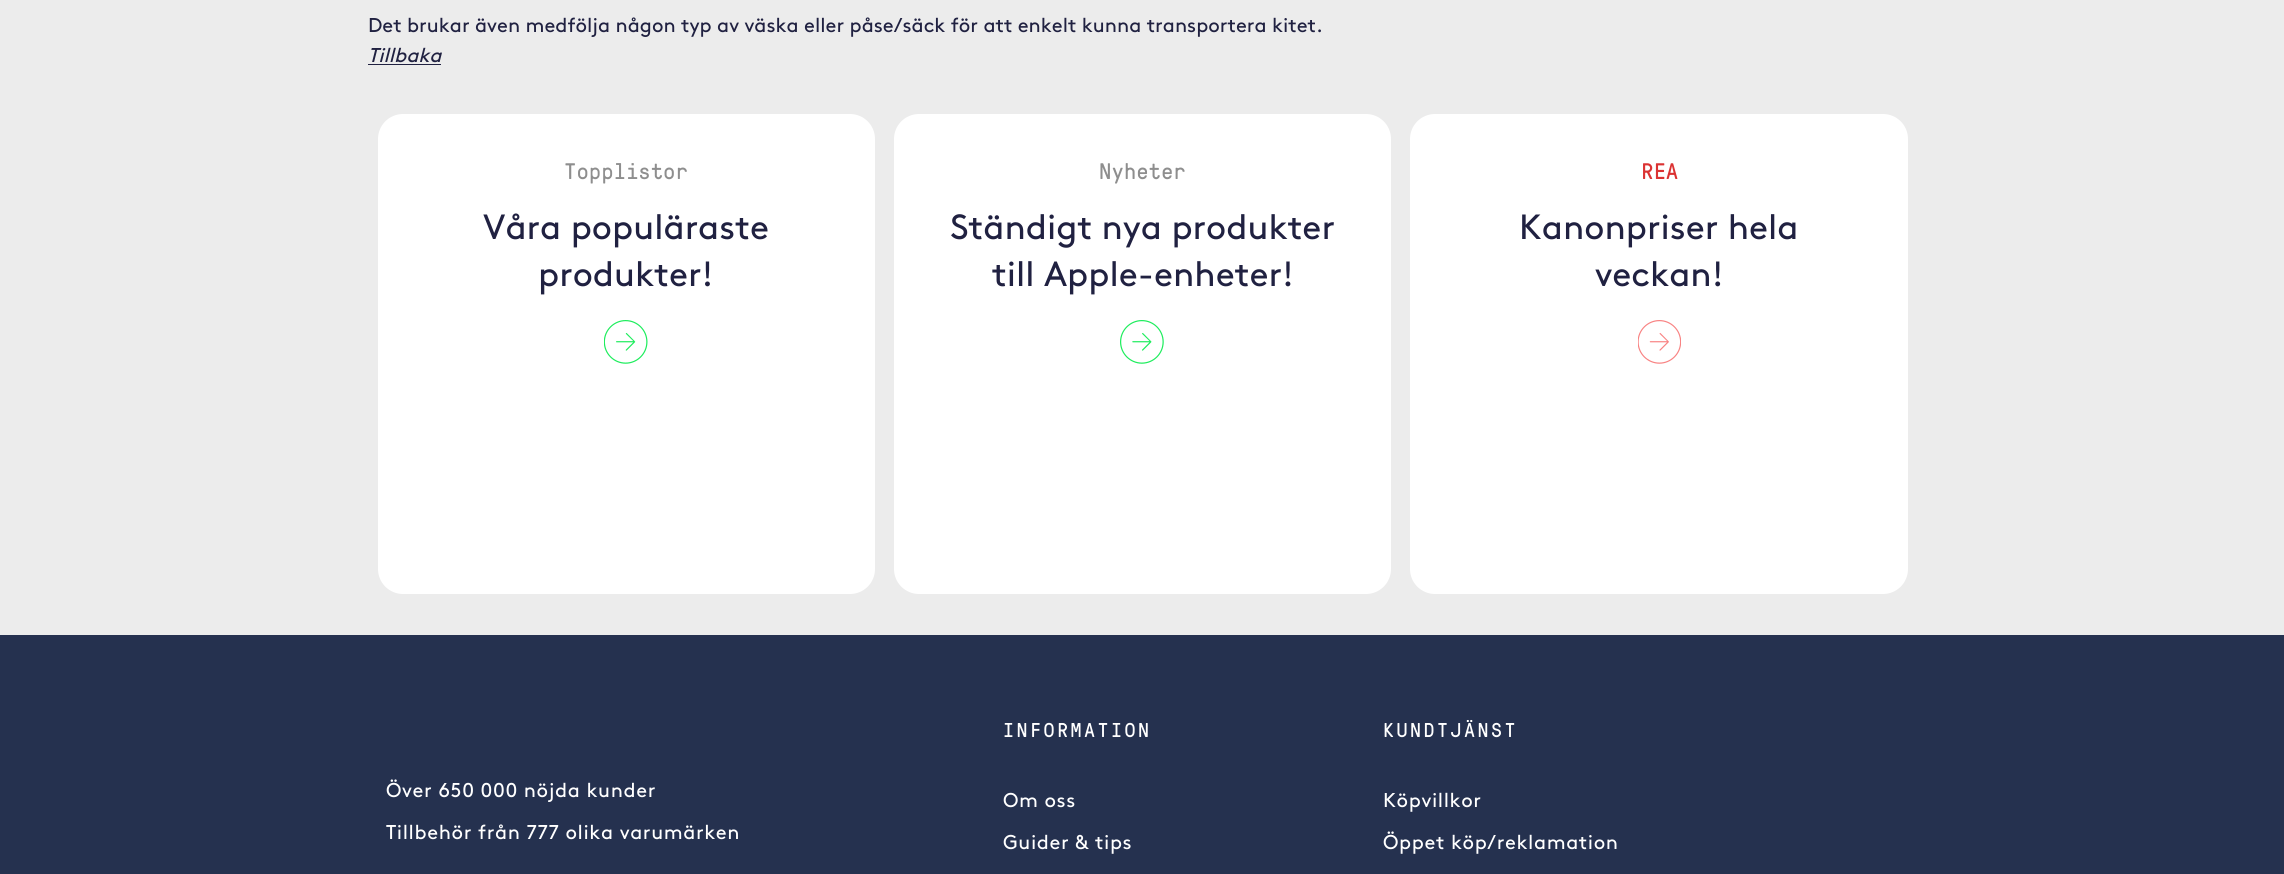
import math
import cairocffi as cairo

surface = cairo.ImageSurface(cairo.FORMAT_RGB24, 2284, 874)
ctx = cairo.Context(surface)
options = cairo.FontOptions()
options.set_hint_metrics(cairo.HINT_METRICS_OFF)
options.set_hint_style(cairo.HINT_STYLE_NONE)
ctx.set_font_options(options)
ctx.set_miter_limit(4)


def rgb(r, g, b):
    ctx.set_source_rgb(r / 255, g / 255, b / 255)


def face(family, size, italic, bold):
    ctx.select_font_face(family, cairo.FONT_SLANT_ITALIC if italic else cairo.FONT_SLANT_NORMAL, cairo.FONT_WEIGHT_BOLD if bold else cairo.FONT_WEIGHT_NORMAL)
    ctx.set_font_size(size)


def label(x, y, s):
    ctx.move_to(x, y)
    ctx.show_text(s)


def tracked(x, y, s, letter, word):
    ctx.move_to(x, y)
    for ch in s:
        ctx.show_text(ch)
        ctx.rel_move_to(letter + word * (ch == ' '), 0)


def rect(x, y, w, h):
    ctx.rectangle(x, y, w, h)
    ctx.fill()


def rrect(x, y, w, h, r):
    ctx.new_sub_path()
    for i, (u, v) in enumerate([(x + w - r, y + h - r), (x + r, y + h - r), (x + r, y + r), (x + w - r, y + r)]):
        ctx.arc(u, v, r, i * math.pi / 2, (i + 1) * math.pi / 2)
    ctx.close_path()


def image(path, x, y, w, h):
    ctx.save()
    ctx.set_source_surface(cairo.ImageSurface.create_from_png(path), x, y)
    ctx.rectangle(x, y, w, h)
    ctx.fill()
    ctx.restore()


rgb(236, 236, 236)
ctx.paint()
face('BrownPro', 20, 0, 0)
rgb(32, 33, 65)
label(368, 32, 'Det brukar även medfölja någon typ av väska eller påse/säck för att enkelt kunna transportera kitet.')
face('BrownPro', 20, 1, 0)
label(368, 62, 'Tillbaka')
rect(368, 64, 73, 1)
rgb(255, 255, 255)
rrect(378, 114, 497, 480, 25)
ctx.fill()
face('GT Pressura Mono', 22.5, 0, 0)
rgb(142, 142, 142)
label(564, 179, 'Topplistor')
face('BrownPro', 35, 0, 0)
rgb(32, 33, 65)
label(483, 239, 'Våra populäraste')
label(538, 286, 'produkter!')
image('image0.png', 604, 320, 44, 44)
rgb(255, 255, 255)
rrect(894, 114, 497, 480, 25)
ctx.fill()
face('GT Pressura Mono', 22.5, 0, 0)
rgb(142, 142, 142)
label(1099, 179, 'Nyheter')
face('BrownPro', 35, 0, 0)
rgb(32, 33, 65)
label(950, 239, 'Ständigt nya produkter')
label(992, 286, 'till Apple-enheter!')
image('image1.png', 1120, 320, 44, 44)
rgb(255, 255, 255)
rrect(1410, 114, 498, 480, 25)
ctx.fill()
face('GT Pressura Mono', 22.5, 0, 0)
rgb(219, 50, 50)
label(1641, 179, 'REA')
face('BrownPro', 35, 0, 0)
rgb(32, 33, 65)
label(1519, 239, 'Kanonpriser hela')
label(1595, 286, 'veckan!')
image('image2.png', 1638, 320, 43, 44)
rgb(37, 49, 79)
rect(0, 635, 2284, 239)
face('BrownPro', 20, 0, 0)
rgb(255, 255, 255)
tracked(386, 797, 'Över 650 000 nöjda kunder', 0.6, 0)
tracked(386, 839, 'Tillbehör från 777 olika varumärken', 0.6, 0)
face('GT Pressura Mono', 20, 0, 0)
tracked(1003, 737, 'INFORMATION', 2.5, 0)
face('BrownPro', 20, 0, 0)
tracked(1003, 807, 'Om oss', 0.6, 0)
tracked(1003, 849, 'Guider & tips', 0.6, 0)
face('GT Pressura Mono', 20, 0, 0)
tracked(1383, 737, 'KUNDTJÄNST', 2.5, 0)
face('BrownPro', 20, 0, 0)
tracked(1383, 807, 'Köpvillkor', 0.6, 0)
tracked(1383, 849, 'Öppet köp/reklamation', 0.6, 0)
surface.write_to_png('render.png')
